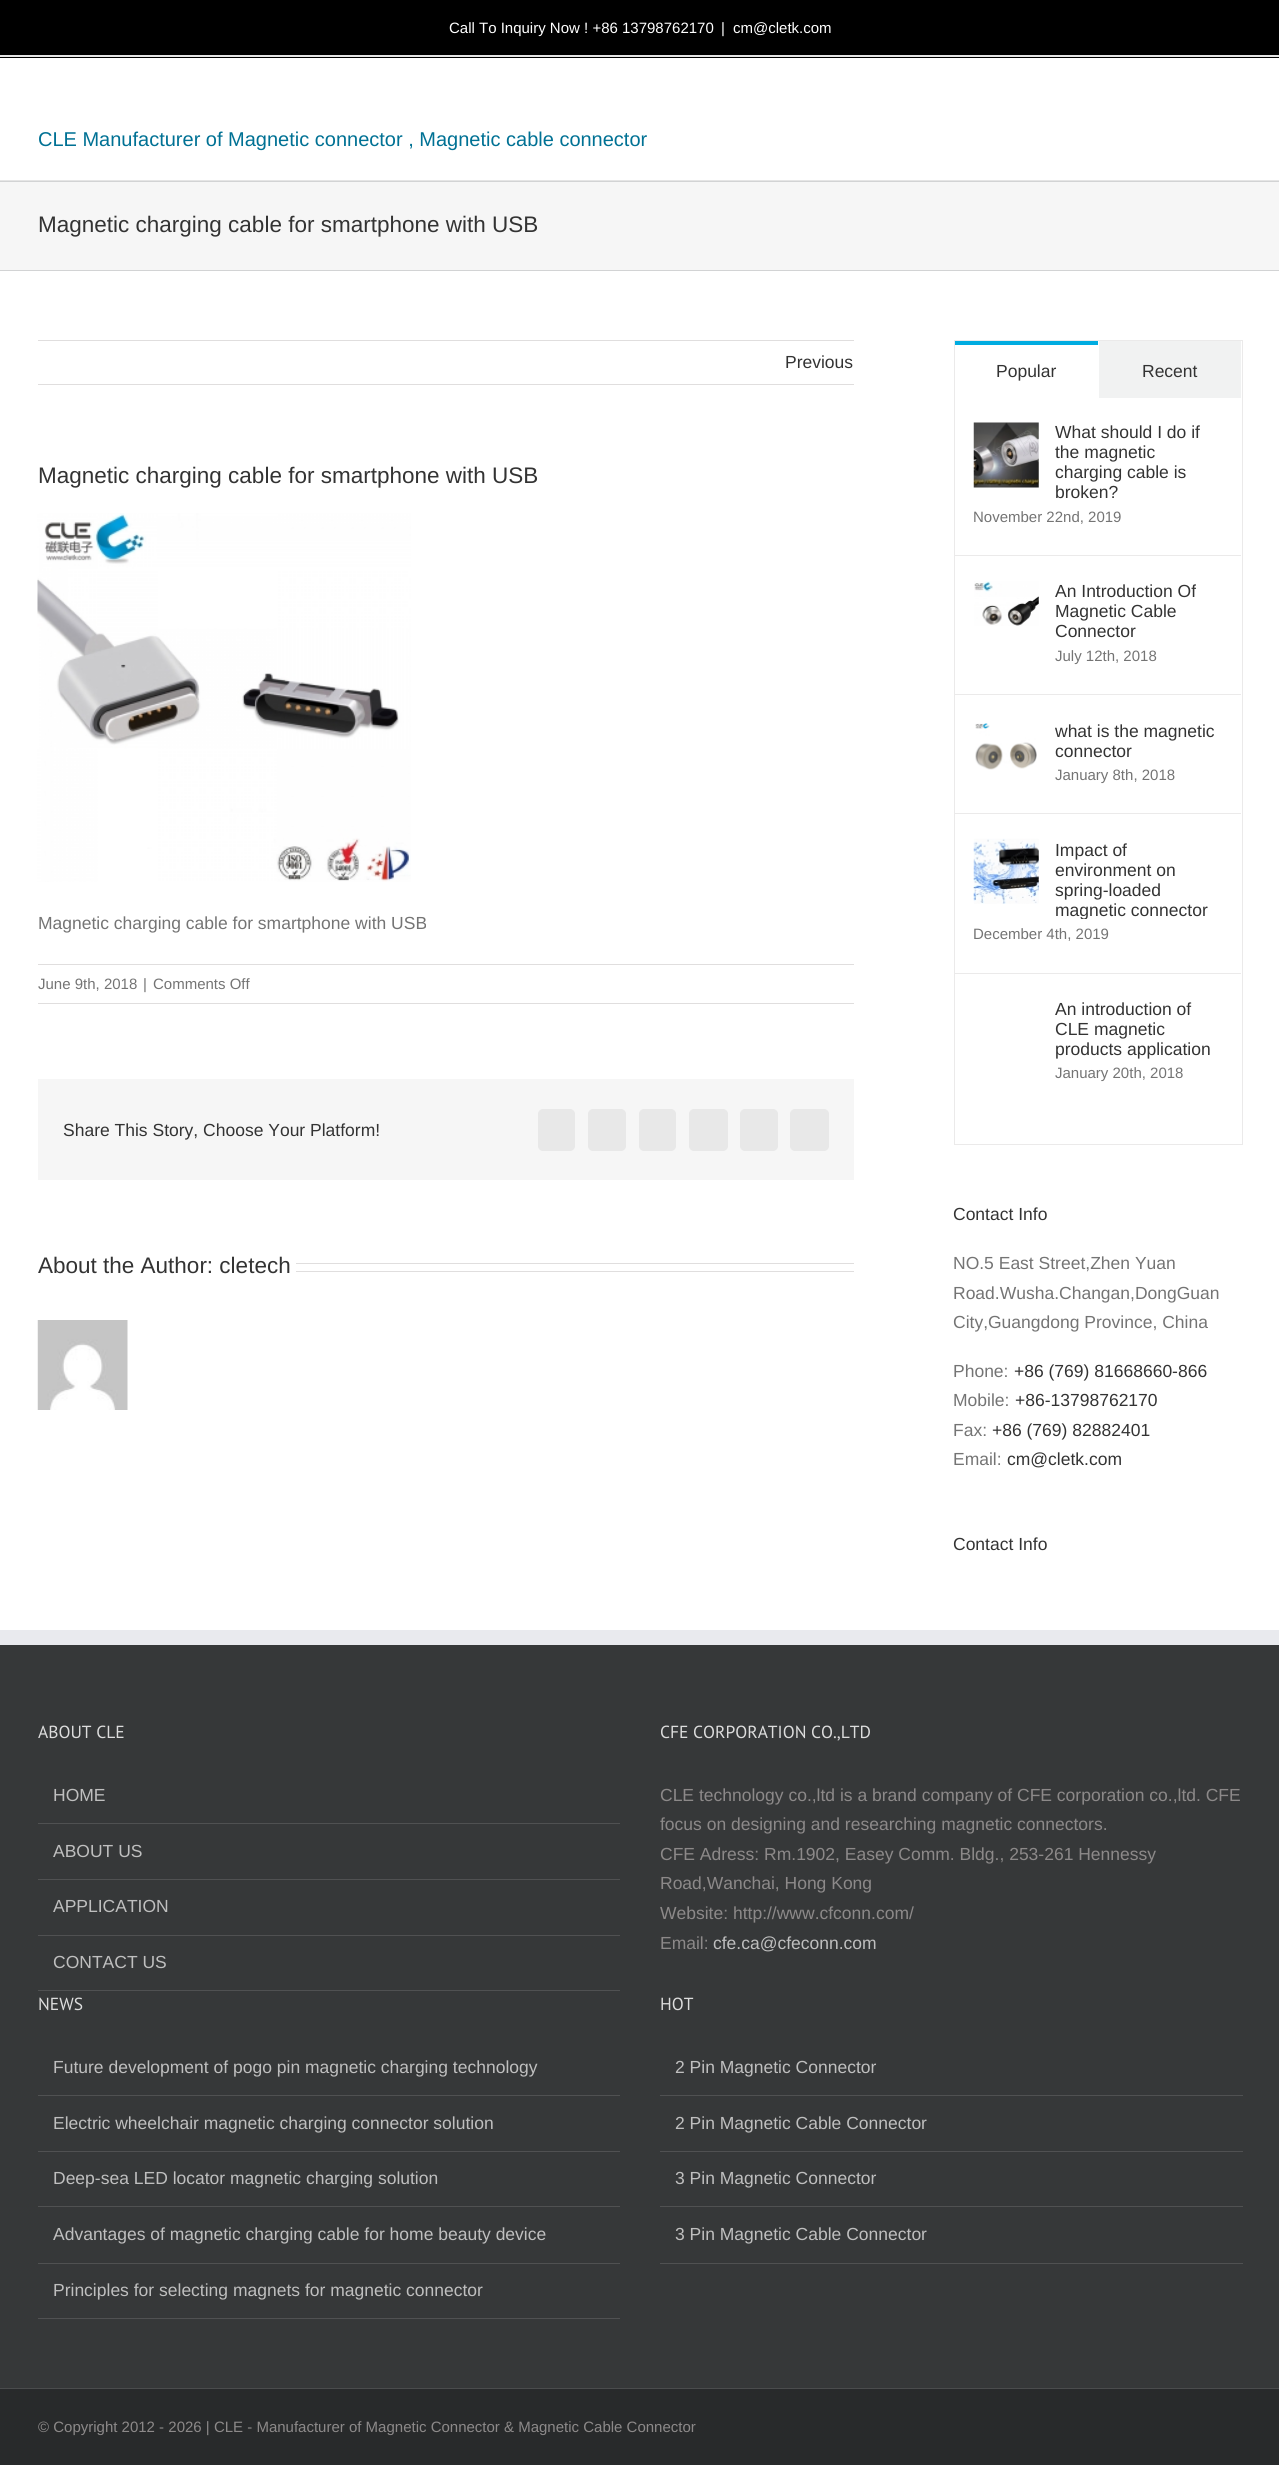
import math
import cairocffi as cairo

surface = cairo.ImageSurface(cairo.FORMAT_RGB24, 1279, 2479)
ctx = cairo.Context(surface)
options = cairo.FontOptions()
options.set_hint_metrics(cairo.HINT_METRICS_OFF)
options.set_hint_style(cairo.HINT_STYLE_NONE)
ctx.set_font_options(options)
ctx.set_miter_limit(4)


def rgb(r, g, b):
    ctx.set_source_rgb(r / 255, g / 255, b / 255)


def face(family, size, italic, bold):
    ctx.select_font_face(family, cairo.FONT_SLANT_ITALIC if italic else cairo.FONT_SLANT_NORMAL, cairo.FONT_WEIGHT_BOLD if bold else cairo.FONT_WEIGHT_NORMAL)
    ctx.set_font_size(size)


def label(x, y, s):
    ctx.move_to(x, y)
    ctx.show_text(s)


def rect(x, y, w, h):
    ctx.rectangle(x, y, w, h)
    ctx.fill()


def rrect(x, y, w, h, r):
    ctx.new_sub_path()
    for i, (u, v) in enumerate([(x + w - r, y + h - r), (x + r, y + h - r), (x + r, y + r), (x + w - r, y + r)]):
        ctx.arc(u, v, r, i * math.pi / 2, (i + 1) * math.pi / 2)
    ctx.close_path()


def image(path, x, y, w, h):
    ctx.save()
    ctx.set_source_surface(cairo.ImageSurface.create_from_png(path), x, y)
    ctx.rectangle(x, y, w, h)
    ctx.fill()
    ctx.restore()


rgb(255, 255, 255)
ctx.paint()
rgb(0, 0, 0)
rect(0, 0, 1279, 58)
rgb(229, 229, 229)
rect(0, 55, 1279, 2)
face('Liberation Sans', 15, 0, 0)
rgb(255, 255, 255)
label(449, 33, 'Call To Inquiry Now ! +86 13798762170')
label(721, 33, '|')
label(733, 33, 'cm@cletk.com')
rgb(229, 229, 229)
rect(0, 180, 1279, 1)
face('Liberation Sans', 20, 0, 0)
rgb(0, 113, 148)
label(38, 146, 'CLE Manufacturer of Magnetic connector , Magnetic cable connector')
rgb(246, 246, 246)
rect(0, 182, 1279, 88)
rgb(210, 211, 212)
rect(0, 181, 1279, 1)
rect(0, 270, 1279, 1)
face('Liberation Sans', 22.5, 0, 0)
rgb(51, 51, 51)
label(38, 232, 'Magnetic charging cable for smartphone with USB')
rgb(224, 222, 222)
rect(38, 340, 816, 1)
rect(38, 384, 816, 1)
face('Liberation Sans', 17.5, 0, 0)
rgb(51, 51, 51)
label(785, 368, 'Previous')
face('Liberation Sans', 22.5, 0, 0)
label(38, 483, 'Magnetic charging cable for smartphone with USB')
image('image0.png', 37, 513, 374, 369)
face('Liberation Sans', 17.5, 0, 0)
rgb(116, 116, 116)
label(38, 929, 'Magnetic charging cable for smartphone with USB')
rgb(224, 222, 222)
rect(38, 964, 816, 1)
rect(38, 1003, 816, 1)
face('Liberation Sans', 15, 0, 0)
rgb(116, 116, 116)
label(38, 989, 'June 9th, 2018')
label(143, 989, '|')
label(153, 989, 'Comments Off')
rgb(246, 246, 246)
rect(38, 1079, 816, 101)
face('Liberation Sans', 17.5, 0, 0)
rgb(51, 51, 51)
label(63, 1136, 'Share This Story, Choose Your Platform!')
rgb(232, 232, 232)
rrect(538.5, 1109.5, 36, 41, 4.5)
ctx.fill_preserve()
ctx.set_line_width(1)
ctx.stroke()
rrect(588.5, 1109.5, 37, 41, 4.5)
ctx.fill_preserve()
ctx.stroke()
rrect(639.5, 1109.5, 36, 41, 4.5)
ctx.fill_preserve()
ctx.stroke()
rrect(689.5, 1109.5, 38, 41, 4.5)
ctx.fill_preserve()
ctx.stroke()
rrect(740.5, 1109.5, 37, 41, 4.5)
ctx.fill_preserve()
ctx.stroke()
rrect(790.5, 1109.5, 38, 41, 4.5)
ctx.fill_preserve()
ctx.stroke()
face('Liberation Sans', 22.5, 0, 0)
rgb(51, 51, 51)
label(38, 1273, 'About the Author: cletech')
rgb(224, 222, 222)
rect(296, 1263, 558, 1)
rect(296, 1271, 558, 1)
image('image1.png', 37, 1320, 91, 90)
ctx.rectangle(954.5, 340.5, 288, 804)
rgb(235, 234, 234)
ctx.stroke()
rgb(0, 172, 225)
rect(955, 341, 143, 4)
face('Liberation Sans', 17.5, 0, 0)
rgb(51, 51, 51)
label(996, 377, 'Popular')
rgb(241, 242, 242)
rect(1099, 341, 142, 57)
rgb(51, 51, 51)
label(1142, 377, 'Recent')
rgb(235, 234, 234)
rect(955, 555, 286, 1)
image('image2.png', 973, 422, 66, 66)
rgb(51, 51, 51)
label(1055, 438, 'What should I do if')
label(1055, 458, 'the magnetic')
label(1055, 478, 'charging cable is')
label(1055, 498, 'broken?')
face('Liberation Sans', 15, 0, 0)
rgb(116, 116, 116)
label(973, 522, 'November 22nd, 2019')
rgb(235, 234, 234)
rect(955, 694, 286, 1)
image('image3.png', 974, 581, 65, 45)
face('Liberation Sans', 17.5, 0, 0)
rgb(51, 51, 51)
label(1055, 597, 'An Introduction Of')
label(1055, 617, 'Magnetic Cable')
label(1055, 637, 'Connector')
face('Liberation Sans', 15, 0, 0)
rgb(116, 116, 116)
label(1055, 661, 'July 12th, 2018')
rgb(235, 234, 234)
rect(955, 813, 286, 1)
image('image4.png', 975, 723, 62, 47)
face('Liberation Sans', 17.5, 0, 0)
rgb(51, 51, 51)
label(1055, 737, 'what is the magnetic')
label(1055, 757, 'connector')
face('Liberation Sans', 15, 0, 0)
rgb(116, 116, 116)
label(1055, 780, 'January 8th, 2018')
rgb(235, 234, 234)
rect(955, 973, 286, 1)
image('image5.png', 973, 838, 66, 66)
face('Liberation Sans', 17.5, 0, 0)
rgb(51, 51, 51)
label(1055, 856, 'Impact of')
label(1055, 876, 'environment on')
label(1055, 896, 'spring-loaded')
ctx.save()
ctx.rectangle(1055, 839, 168, 80)
ctx.clip()
label(1055, 916, 'magnetic connector')
ctx.restore()
face('Liberation Sans', 15, 0, 0)
rgb(116, 116, 116)
label(973, 939, 'December 4th, 2019')
face('Liberation Sans', 17.5, 0, 0)
rgb(51, 51, 51)
label(1055, 1015, 'An introduction of')
label(1055, 1035, 'CLE magnetic')
label(1055, 1055, 'products application')
face('Liberation Sans', 15, 0, 0)
rgb(116, 116, 116)
label(1055, 1078, 'January 20th, 2018')
face('Liberation Sans', 17.5, 0, 0)
rgb(51, 51, 51)
label(953, 1220, 'Contact Info')
rgb(116, 116, 116)
label(953, 1269, 'NO.5 East Street,Zhen Yuan')
label(953, 1299, 'Road.Wusha.Changan,DongGuan')
label(953, 1328, 'City,Guangdong Province, China')
label(953, 1377, 'Phone:')
rgb(51, 51, 51)
label(1014, 1377, '+86 (769) 81668660-866')
rgb(116, 116, 116)
label(953, 1406, 'Mobile:')
rgb(51, 51, 51)
label(1015, 1406, '+86-13798762170')
rgb(116, 116, 116)
label(953, 1436, 'Fax:')
rgb(51, 51, 51)
label(992, 1436, '+86 (769) 82882401')
rgb(116, 116, 116)
label(953, 1465, 'Email:')
rgb(51, 51, 51)
label(1007, 1465, 'cm@cletk.com')
label(953, 1550, 'Contact Info')
rgb(54, 56, 57)
rect(0, 1645, 1279, 743)
rgb(233, 234, 238)
rect(0, 1630, 1279, 15)
face('PT Sans', 17.5, 0, 0)
rgb(221, 221, 221)
label(38, 1738, 'ABOUT CLE')
rgb(80, 81, 82)
rect(38, 1823, 582, 1)
face('Liberation Sans', 17.5, 0, 0)
rgb(191, 191, 191)
label(53, 1801, 'HOME')
rgb(80, 81, 82)
rect(38, 1879, 582, 1)
rgb(191, 191, 191)
label(53, 1857, 'ABOUT US')
rgb(80, 81, 82)
rect(38, 1935, 582, 1)
rgb(191, 191, 191)
label(53, 1912, 'APPLICATION')
rgb(80, 81, 82)
rect(38, 1990, 582, 1)
rgb(191, 191, 191)
label(53, 1968, 'CONTACT US')
face('PT Sans', 17.5, 0, 0)
rgb(221, 221, 221)
label(660, 1738, 'CFE CORPORATION CO.,LTD')
face('Liberation Sans', 17.5, 0, 0)
rgb(140, 137, 137)
label(660, 1801, 'CLE technology co.,ltd is a brand company of CFE corporation co.,ltd. CFE')
label(660, 1830, 'focus on designing and researching magnetic connectors.')
label(660, 1860, 'CFE Adress: Rm.1902, Easey Comm. Bldg., 253-261 Hennessy')
label(660, 1889, 'Road,Wanchai, Hong Kong')
label(660, 1919, 'Website: http://www.cfconn.com/')
label(660, 1949, 'Email:')
rgb(191, 191, 191)
label(713, 1949, 'cfe.ca@cfeconn.com')
face('PT Sans', 17.5, 0, 0)
rgb(221, 221, 221)
label(38, 2010, 'NEWS')
rgb(80, 81, 82)
rect(38, 2095, 582, 1)
face('Liberation Sans', 17.5, 0, 0)
rgb(191, 191, 191)
label(53, 2073, 'Future development of pogo pin magnetic charging technology')
rgb(80, 81, 82)
rect(38, 2151, 582, 1)
rgb(191, 191, 191)
label(53, 2129, 'Electric wheelchair magnetic charging connector solution')
rgb(80, 81, 82)
rect(38, 2206, 582, 1)
rgb(191, 191, 191)
label(53, 2184, 'Deep-sea LED locator magnetic charging solution')
rgb(80, 81, 82)
rect(38, 2263, 582, 1)
rgb(191, 191, 191)
label(53, 2240, 'Advantages of magnetic charging cable for home beauty device')
rgb(80, 81, 82)
rect(38, 2318, 582, 1)
rgb(191, 191, 191)
label(53, 2296, 'Principles for selecting magnets for magnetic connector')
face('PT Sans', 17.5, 0, 0)
rgb(221, 221, 221)
label(660, 2010, 'HOT')
rgb(80, 81, 82)
rect(660, 2095, 583, 1)
face('Liberation Sans', 17.5, 0, 0)
rgb(191, 191, 191)
label(675, 2073, '2 Pin Magnetic Connector')
rgb(80, 81, 82)
rect(660, 2151, 583, 1)
rgb(191, 191, 191)
label(675, 2129, '2 Pin Magnetic Cable Connector')
rgb(80, 81, 82)
rect(660, 2206, 583, 1)
rgb(191, 191, 191)
label(675, 2184, '3 Pin Magnetic Connector')
rgb(80, 81, 82)
rect(660, 2263, 583, 1)
rgb(191, 191, 191)
label(675, 2240, '3 Pin Magnetic Cable Connector')
rgb(40, 42, 43)
rect(0, 2389, 1279, 76)
rgb(75, 76, 77)
rect(0, 2388, 1279, 1)
face('Liberation Sans', 15, 0, 0)
rgb(140, 137, 137)
label(38, 2432, '© Copyright 2012 - 2026 | CLE - Manufacturer of Magnetic Connector & Magnetic Cable Connector')
surface.write_to_png('render.png')
